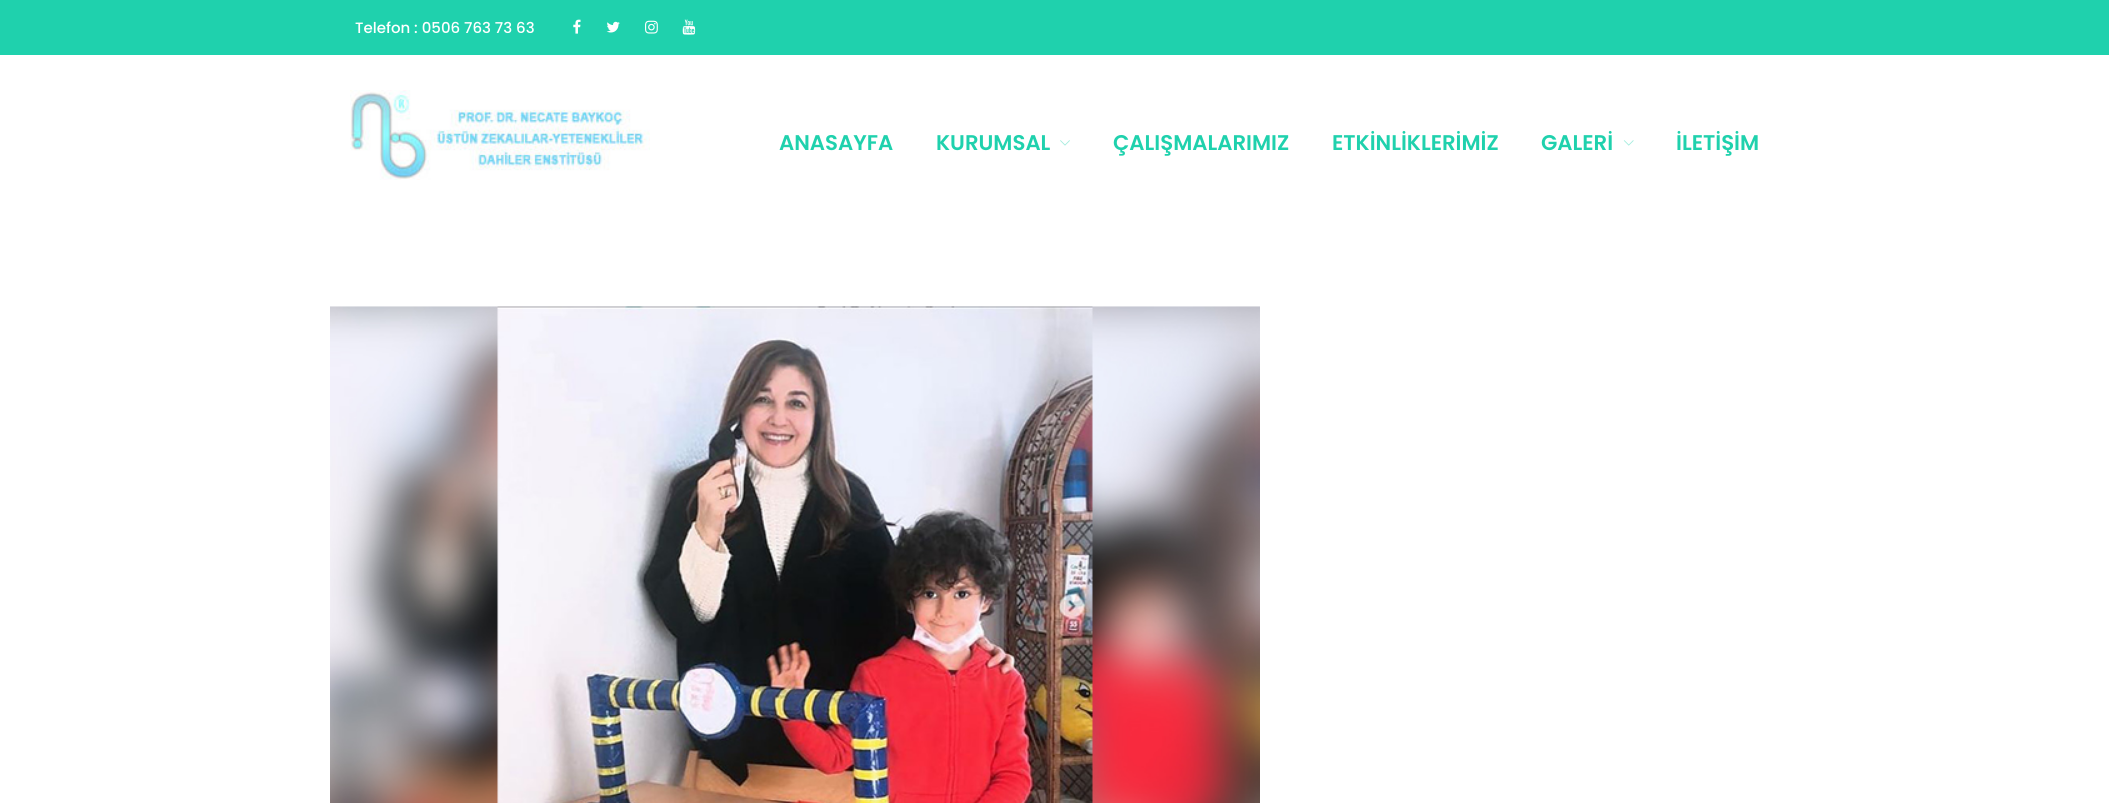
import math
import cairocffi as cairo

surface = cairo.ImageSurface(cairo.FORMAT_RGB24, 2109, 803)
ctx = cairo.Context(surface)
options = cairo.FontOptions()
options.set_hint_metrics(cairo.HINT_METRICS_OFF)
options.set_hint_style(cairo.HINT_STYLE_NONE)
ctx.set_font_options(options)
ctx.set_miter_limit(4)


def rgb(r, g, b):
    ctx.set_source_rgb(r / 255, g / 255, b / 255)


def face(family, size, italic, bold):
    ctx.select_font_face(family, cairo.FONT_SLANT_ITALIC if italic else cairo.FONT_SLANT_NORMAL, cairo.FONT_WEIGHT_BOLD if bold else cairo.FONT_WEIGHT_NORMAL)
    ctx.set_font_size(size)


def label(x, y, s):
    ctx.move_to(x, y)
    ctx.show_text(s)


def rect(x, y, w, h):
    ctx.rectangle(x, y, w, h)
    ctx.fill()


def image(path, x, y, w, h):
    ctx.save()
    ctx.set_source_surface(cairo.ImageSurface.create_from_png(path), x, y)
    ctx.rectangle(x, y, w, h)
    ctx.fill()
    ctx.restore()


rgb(255, 255, 255)
ctx.paint()
rgb(31, 209, 173)
rect(0, 0, 2109, 55)
face('Poppins Medium', 15, 0, 0)
rgb(255, 255, 255)
label(355, 33, 'Telefon : 0506 763 73 63')
image('image0.png', 573, 19, 8, 15)
image('image1.png', 606, 21, 14, 12)
image('image2.png', 645, 20, 13, 14)
image('image3.png', 682, 19, 14, 16)
image('image4.png', 350, 90, 300, 90)
face('Poppins SemiBold', 21.25, 0, 0)
rgb(31, 209, 173)
label(779, 150, 'ANASAYFA')
label(936, 150, 'KURUMSAL')
image('image5.png', 1060, 140, 10, 6)
label(1113, 150, 'ÇALIŞMALARIMIZ')
label(1332, 150, 'ETKİNLİKLERİMİZ')
label(1541, 150, 'GALERİ')
image('image6.png', 1623, 140, 11, 6)
label(1676, 150, 'İLETİŞİM')
image('image7.png', 330, 306, 930, 497)
surface.write_to_png('render.png')
